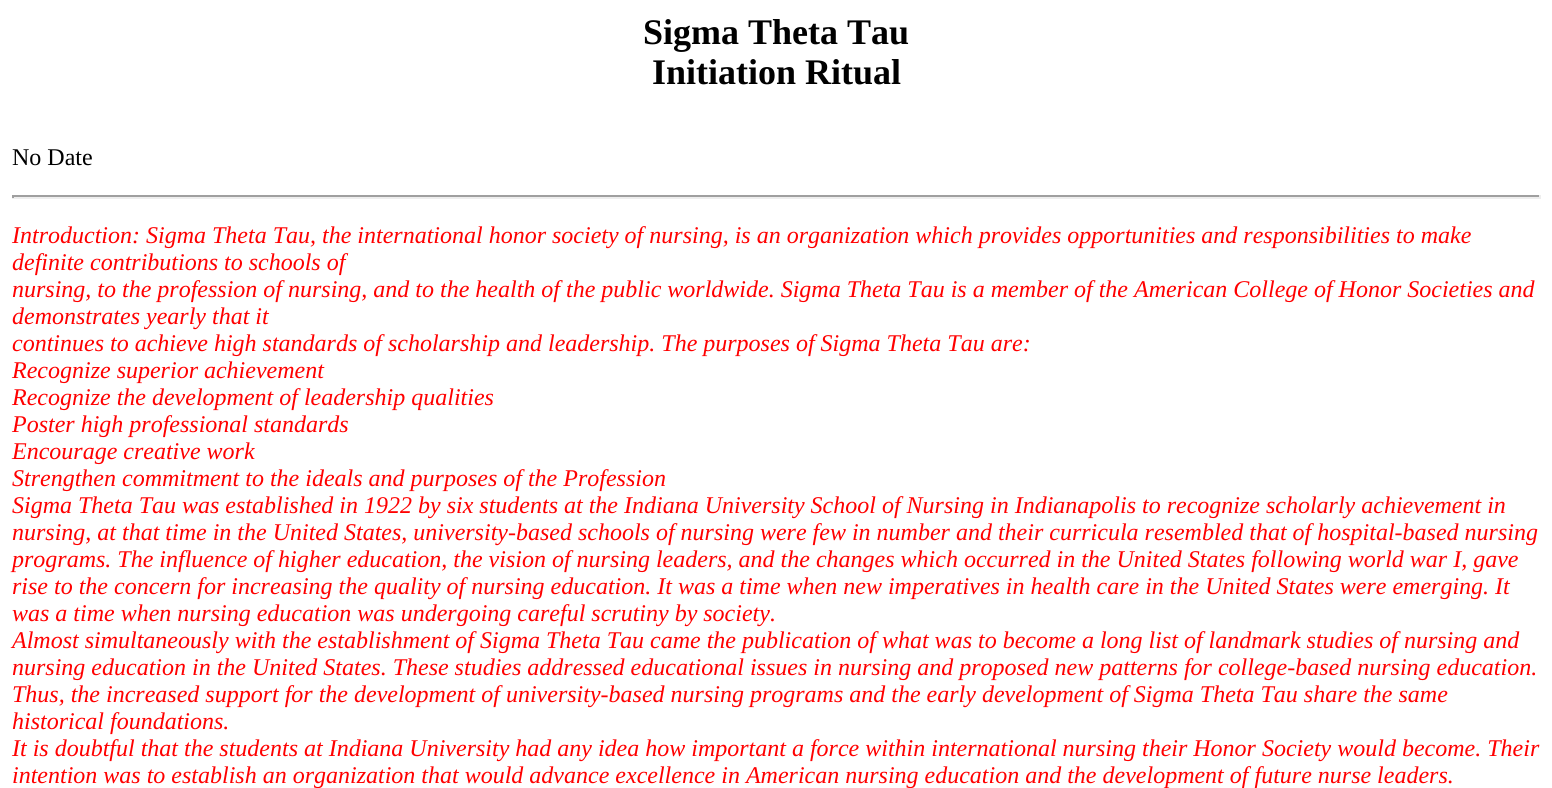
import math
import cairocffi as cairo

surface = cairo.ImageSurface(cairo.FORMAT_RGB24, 1552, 788)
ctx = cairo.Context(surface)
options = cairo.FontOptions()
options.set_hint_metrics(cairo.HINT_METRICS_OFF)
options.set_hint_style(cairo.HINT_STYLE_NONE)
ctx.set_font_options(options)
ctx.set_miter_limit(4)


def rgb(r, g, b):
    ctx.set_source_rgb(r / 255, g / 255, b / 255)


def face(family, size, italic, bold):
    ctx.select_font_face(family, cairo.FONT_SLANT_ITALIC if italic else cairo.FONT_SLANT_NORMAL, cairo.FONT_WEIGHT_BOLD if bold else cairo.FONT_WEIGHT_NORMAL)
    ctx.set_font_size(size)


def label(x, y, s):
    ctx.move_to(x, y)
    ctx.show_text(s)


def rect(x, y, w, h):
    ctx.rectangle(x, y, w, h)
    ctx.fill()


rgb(255, 255, 255)
ctx.paint()
face('Liberation Serif', 36, 0, 1)
rgb(0, 0, 0)
label(643, 44, 'Sigma Theta Tau')
label(652, 84, 'Initiation Ritual')
face('Liberation Serif', 24, 0, 0)
label(12, 165, 'No Date')
rgb(159, 159, 159)
rect(12, 195, 1529, 2)
rgb(238, 238, 238)
rect(1539, 195, 2, 3)
rect(12, 197, 1529, 2)
rgb(159, 159, 159)
rect(12, 195, 2, 3)
face('Liberation Serif', 24, 1, 0)
rgb(255, 0, 0)
label(12, 243, 'Introduction: Sigma Theta Tau, the international honor society of nursing, is an organization which provides opportunities and responsibilities to make')
label(12, 270, 'definite contributions to schools of')
label(12, 297, 'nursing, to the profession of nursing, and to the health of the public worldwide. Sigma Theta Tau is a member of the American College of Honor Societies and')
label(12, 324, 'demonstrates yearly that it')
label(12, 351, 'continues to achieve high standards of scholarship and leadership. The purposes of Sigma Theta Tau are:')
label(12, 378, 'Recognize superior achievement')
label(12, 405, 'Recognize the development of leadership qualities')
label(12, 432, 'Poster high professional standards')
label(12, 459, 'Encourage creative work')
label(12, 486, 'Strengthen commitment to the ideals and purposes of the Profession')
label(12, 513, 'Sigma Theta Tau was established in 1922 by six students at the Indiana University School of Nursing in Indianapolis to recognize scholarly achievement in')
label(12, 540, 'nursing, at that time in the United States, university-based schools of nursing were few in number and their curricula resembled that of hospital-based nursing')
label(12, 567, 'programs. The influence of higher education, the vision of nursing leaders, and the changes which occurred in the United States following world war I, gave')
label(12, 594, 'rise to the concern for increasing the quality of nursing education. It was a time when new imperatives in health care in the United States were emerging. It')
label(12, 621, 'was a time when nursing education was undergoing careful scrutiny by society.')
label(12, 648, 'Almost simultaneously with the establishment of Sigma Theta Tau came the publication of what was to become a long list of landmark studies of nursing and')
label(12, 675, 'nursing education in the United States. These studies addressed educational issues in nursing and proposed new patterns for college-based nursing education.')
label(12, 702, 'Thus, the increased support for the development of university-based nursing programs and the early development of Sigma Theta Tau share the same')
label(12, 729, 'historical foundations.')
label(12, 756, 'It is doubtful that the students at Indiana University had any idea how important a force within international nursing their Honor Society would become. Their')
label(12, 783, 'intention was to establish an organization that would advance excellence in American nursing education and the development of future nurse leaders.')
surface.write_to_png('render.png')
